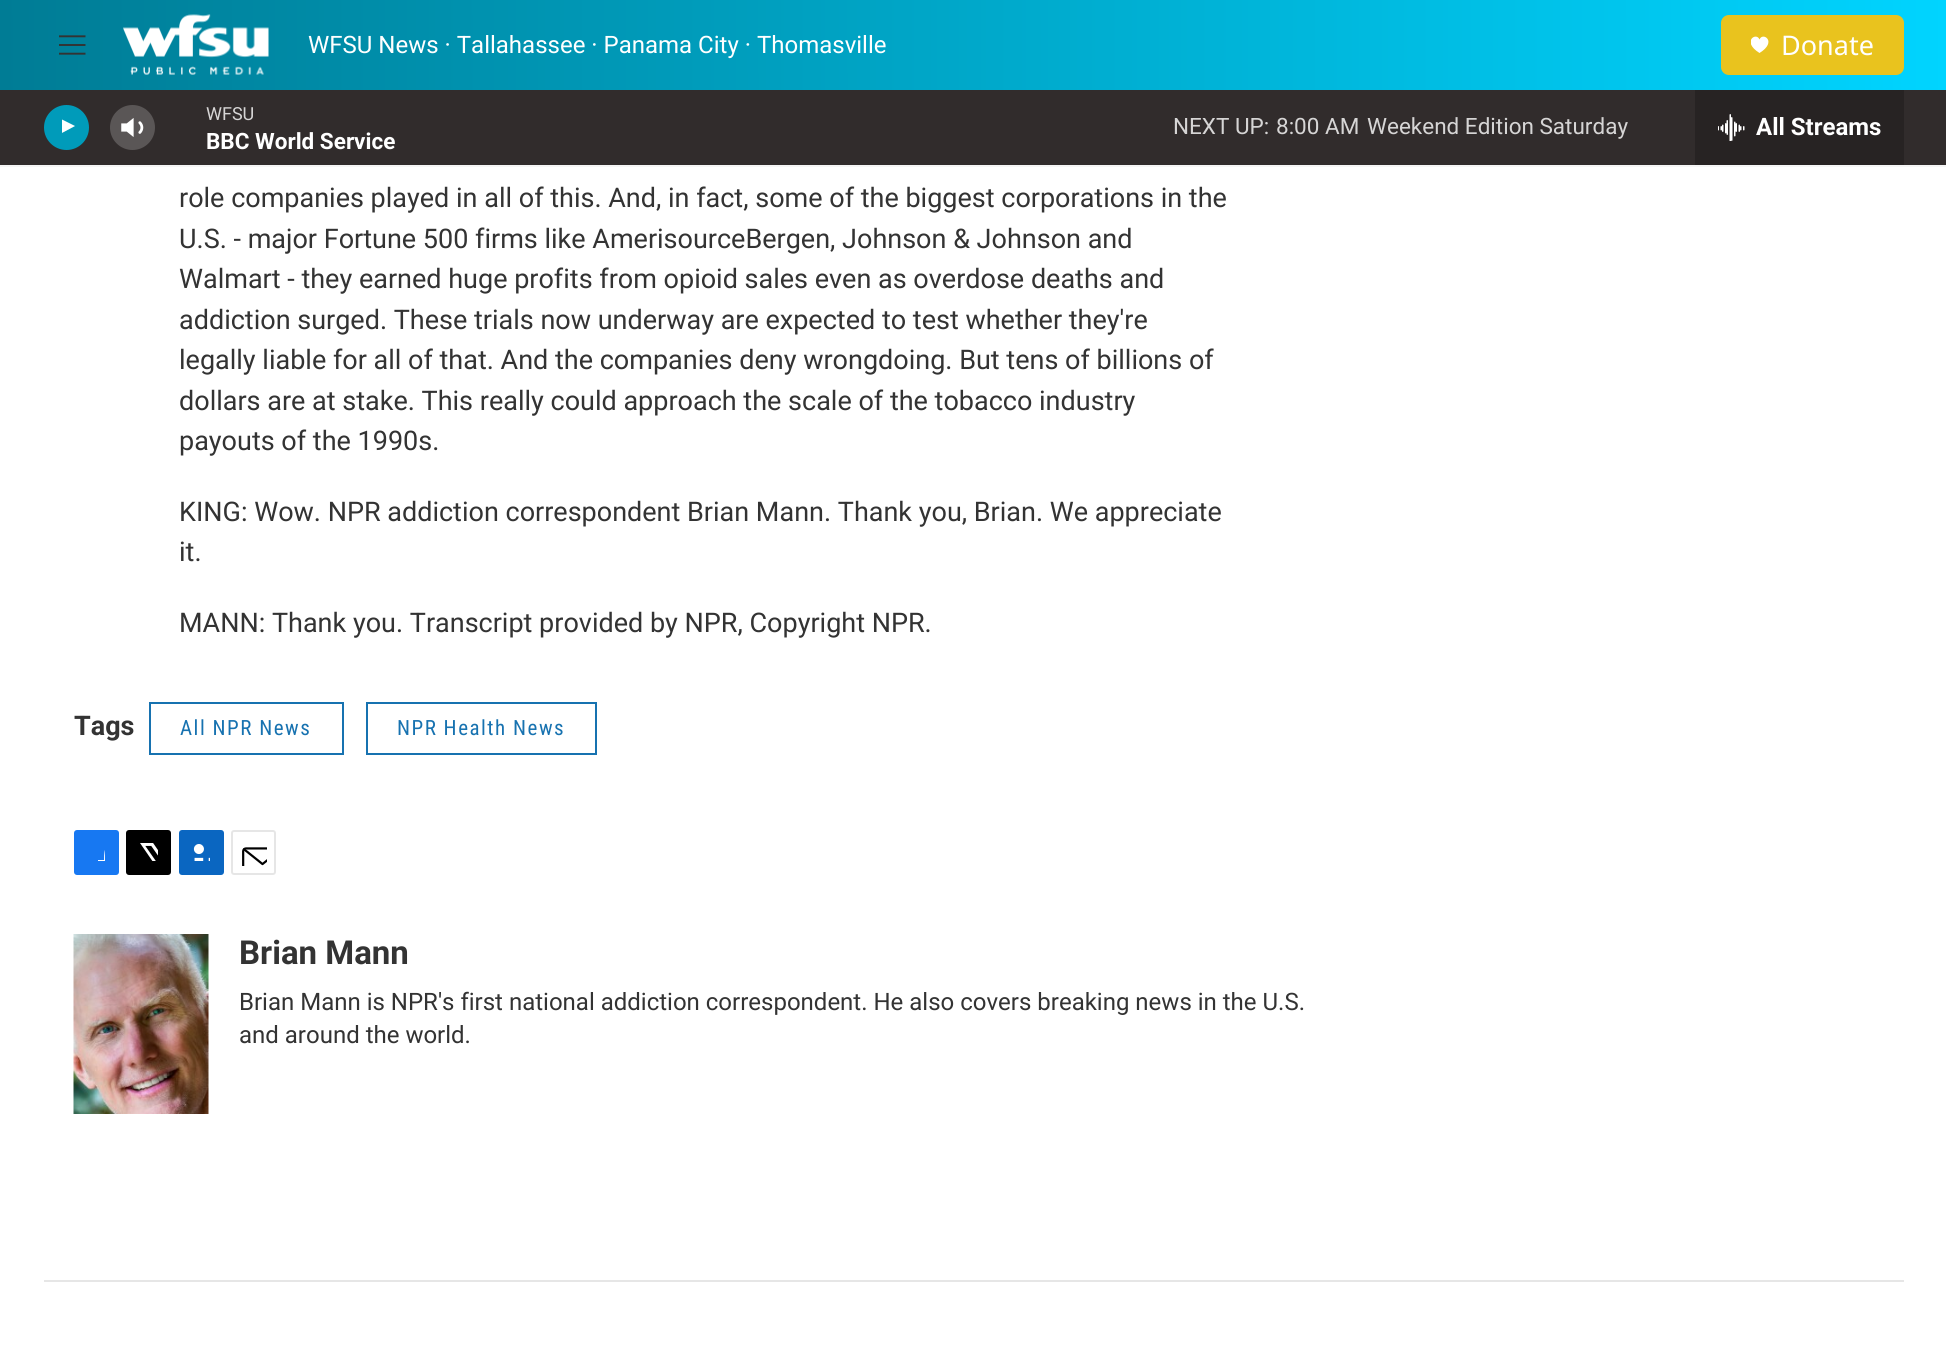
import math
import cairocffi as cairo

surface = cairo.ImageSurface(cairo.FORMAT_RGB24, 1946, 1362)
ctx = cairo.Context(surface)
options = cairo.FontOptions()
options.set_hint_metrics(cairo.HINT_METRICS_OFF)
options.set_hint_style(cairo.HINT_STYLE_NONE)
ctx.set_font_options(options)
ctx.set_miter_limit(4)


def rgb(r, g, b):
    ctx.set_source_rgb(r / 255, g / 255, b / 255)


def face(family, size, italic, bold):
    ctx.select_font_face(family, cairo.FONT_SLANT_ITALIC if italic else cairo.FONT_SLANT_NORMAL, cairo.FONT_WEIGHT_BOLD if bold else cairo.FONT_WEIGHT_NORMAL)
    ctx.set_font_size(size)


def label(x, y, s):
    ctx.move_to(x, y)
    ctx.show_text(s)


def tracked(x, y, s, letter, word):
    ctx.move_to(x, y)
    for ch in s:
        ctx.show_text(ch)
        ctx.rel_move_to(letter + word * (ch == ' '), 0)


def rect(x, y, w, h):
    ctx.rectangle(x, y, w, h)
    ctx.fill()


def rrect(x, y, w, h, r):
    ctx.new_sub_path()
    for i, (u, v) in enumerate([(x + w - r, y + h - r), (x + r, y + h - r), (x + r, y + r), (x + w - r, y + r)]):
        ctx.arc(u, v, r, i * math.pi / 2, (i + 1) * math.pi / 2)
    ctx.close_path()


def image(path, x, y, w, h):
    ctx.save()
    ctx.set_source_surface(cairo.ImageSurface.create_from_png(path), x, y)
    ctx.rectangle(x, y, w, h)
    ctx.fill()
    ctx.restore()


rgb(255, 255, 255)
ctx.paint()
gradient = cairo.LinearGradient(0, 83, 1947, 82)
gradient.add_color_stop_rgba(0, 0, 0.486, 0.584, 1)
gradient.add_color_stop_rgba(0.35, 0, 0.608, 0.729, 1)
gradient.add_color_stop_rgba(1, 0, 0.831, 1, 1)
ctx.set_source(gradient)
rect(0, 0, 1946, 90)
rgb(245, 245, 245)
rect(0, 165, 1946, 2)
image('image0.png', 59, 35, 27, 20)
image('image1.png', 123, 14, 146, 61)
face('Roboto', 24, 0, 0)
rgb(255, 255, 255)
label(308, 53, 'WFSU News · Tallahassee · Panama City · Thomasville')
rgb(233, 195, 30)
rrect(1721, 15, 183, 60, 8)
ctx.fill()
ctx.save()
ctx.rectangle(1751, 36, 18, 18)
ctx.clip()
rgb(255, 255, 255)
ctx.new_path()
ctx.move_to(1759.5, 39.5)
ctx.curve_to(1756.5, 31.5, 1741, 41.5, 1759.5, 53)
ctx.curve_to(1778, 41.5, 1762.5, 31.5, 1759.5, 39.5)
ctx.close_path()
ctx.fill()
ctx.restore()
face('Noto Sans', 27, 0, 0)
rgb(255, 255, 255)
label(1781, 55, 'Donate')
rgb(49, 44, 44)
rect(0, 90, 1946, 75)
rgb(0, 155, 186)
ctx.new_path()
ctx.arc(66.5, 127.5, 22.5, 0, 2 * math.pi)
ctx.fill()
ctx.save()
ctx.rectangle(62, 117, 17, 23)
ctx.clip()
rgb(255, 255, 255)
ctx.new_path()
ctx.move_to(61, 119)
ctx.line_to(75, 126)
ctx.line_to(61, 133.5)
ctx.close_path()
ctx.fill()
ctx.restore()
image('image2.png', 121, 118, 23, 19)
ctx.set_source_rgba(1, 1, 1, 0.2)
ctx.arc(132.5, 127.5, 22.5, 0, 2 * math.pi)
ctx.fill()
face('Roboto', 18, 0, 0)
rgb(214, 213, 213)
label(206, 120, 'WFSU')
face('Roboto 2', 22.5, 0, 1)
rgb(255, 255, 255)
label(206, 149, 'BBC World Service')
face('Roboto', 22.5, 0, 0)
rgb(214, 213, 213)
label(1173, 134, 'NEXT UP:')
label(1276, 134, '8:00 AM')
label(1367, 134, 'Weekend Edition Saturday')
rgb(39, 35, 35)
rect(1695, 90, 209, 75)
image('image3.png', 1718, 114, 27, 27)
face('Roboto 2', 24, 0, 1)
rgb(255, 255, 255)
label(1756, 135, 'All Streams')
face('Roboto', 27, 0, 0)
rgb(51, 51, 51)
label(179, 207, 'role companies played in all of this. And, in fact, some of the biggest corporations in the')
label(179, 248, 'U.S. - major Fortune 500 firms like AmerisourceBergen, Johnson & Johnson and')
label(179, 288, 'Walmart - they earned huge profits from opioid sales even as overdose deaths and')
label(179, 329, 'addiction surged. These trials now underway are expected to test whether they\'re')
label(179, 369, 'legally liable for all of that. And the companies deny wrongdoing. But tens of billions of')
label(179, 410, 'dollars are at stake. This really could approach the scale of the tobacco industry')
label(179, 450, 'payouts of the 1990s.')
label(179, 521, 'KING: Wow. NPR addiction correspondent Brian Mann. Thank you, Brian. We appreciate')
label(179, 561, 'it.')
label(179, 632, 'MANN: Thank you. Transcript provided by NPR, Copyright NPR.')
face('Roboto', 27, 0, 1)
label(74, 735, 'Tags')
ctx.rectangle(150, 703, 193, 51)
rgb(23, 114, 176)
ctx.stroke()
face('Roboto Condensed', 21, 0, 0)
tracked(180, 735, 'All NPR News', 1.5, 0)
ctx.rectangle(367, 703, 229, 51)
ctx.stroke()
tracked(397, 735, 'NPR Health News', 1.5, 0)
rgb(23, 120, 242)
rrect(74, 830, 45, 45, 3)
ctx.fill()
ctx.save()
ctx.rectangle(87, 843, 18, 18)
ctx.clip()
rgb(255, 255, 255)
ctx.new_path()
ctx.move_to(112, 875)
ctx.line_to(104, 875)
ctx.line_to(104, 867)
ctx.line_to(98, 867)
ctx.line_to(98, 860)
ctx.line_to(104, 860)
ctx.curve_to(104, 847.5, 106, 842, 119, 844)
ctx.line_to(119, 851)
ctx.curve_to(110.5, 851, 112, 852.5, 112, 860)
ctx.line_to(119, 860)
ctx.line_to(118, 867)
ctx.line_to(112, 867)
ctx.close_path()
ctx.fill()
ctx.restore()
rgb(0, 0, 0)
rrect(126, 830, 45, 45, 3)
ctx.fill()
image('image4.png', 140, 843, 18, 18)
rgb(10, 102, 193)
rrect(179, 830, 45, 45, 3)
ctx.fill()
image('image5.png', 193, 844, 17, 17)
rrect(232, 831, 43, 43, 2)
rgb(230, 230, 230)
ctx.stroke()
image('image6.png', 242, 847, 25, 19)
image('image7.png', 73, 934, 136, 180)
face('Roboto', 33, 0, 1)
rgb(51, 51, 51)
label(239, 964, 'Brian Mann')
face('Roboto', 24, 0, 0)
label(239, 1010, 'Brian Mann is NPR\'s first national addiction correspondent. He also covers breaking news in the U.S.')
label(239, 1043, 'and around the world.')
rgb(230, 230, 230)
rect(44, 1280, 1860, 2)
surface.write_to_png('render.png')
